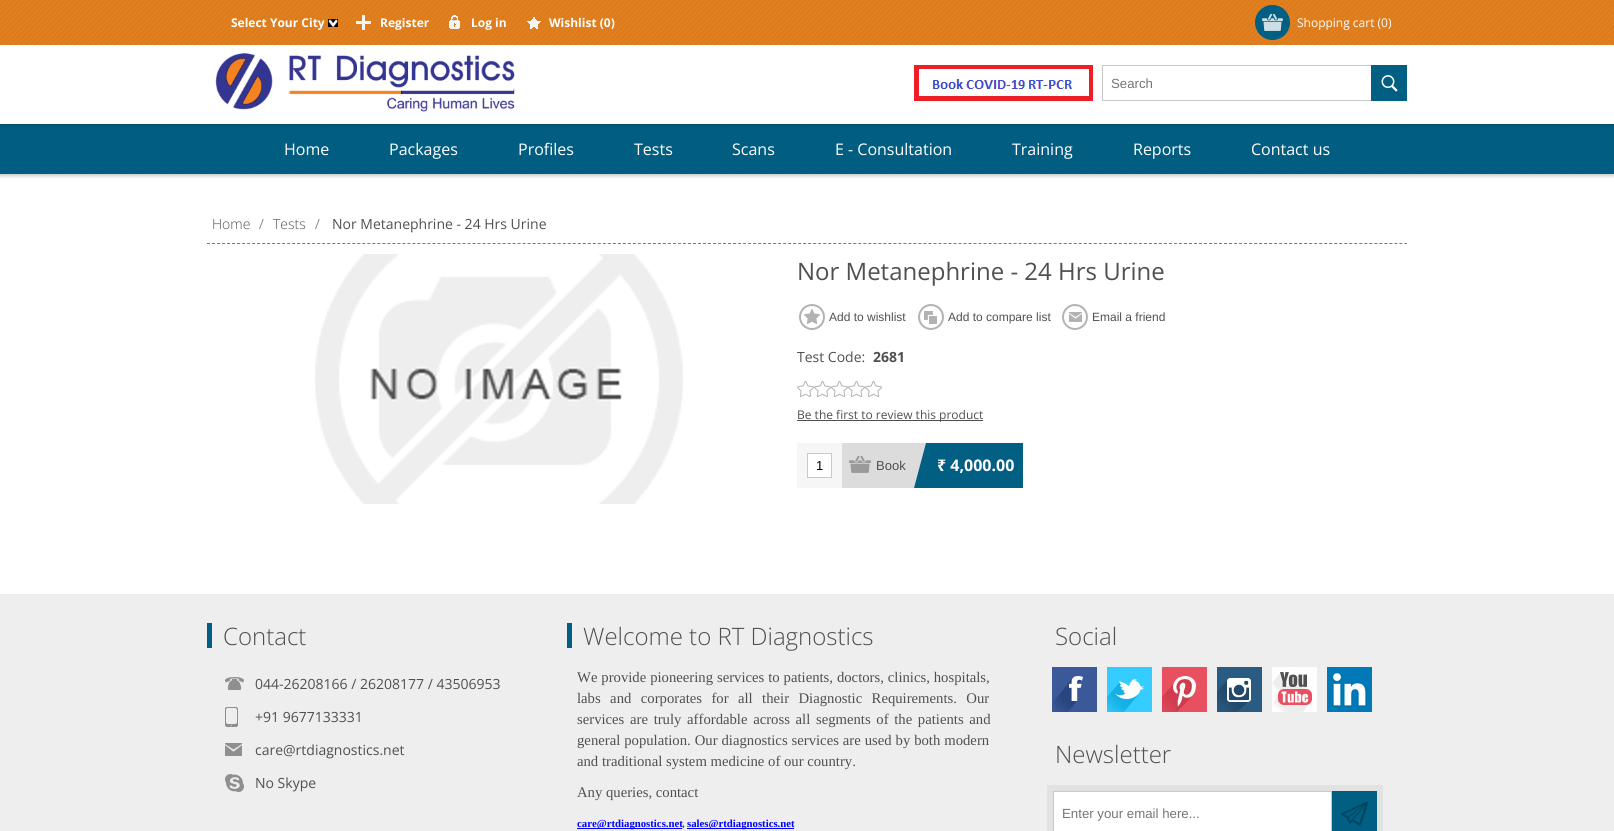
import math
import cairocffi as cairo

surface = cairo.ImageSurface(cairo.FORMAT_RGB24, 1614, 831)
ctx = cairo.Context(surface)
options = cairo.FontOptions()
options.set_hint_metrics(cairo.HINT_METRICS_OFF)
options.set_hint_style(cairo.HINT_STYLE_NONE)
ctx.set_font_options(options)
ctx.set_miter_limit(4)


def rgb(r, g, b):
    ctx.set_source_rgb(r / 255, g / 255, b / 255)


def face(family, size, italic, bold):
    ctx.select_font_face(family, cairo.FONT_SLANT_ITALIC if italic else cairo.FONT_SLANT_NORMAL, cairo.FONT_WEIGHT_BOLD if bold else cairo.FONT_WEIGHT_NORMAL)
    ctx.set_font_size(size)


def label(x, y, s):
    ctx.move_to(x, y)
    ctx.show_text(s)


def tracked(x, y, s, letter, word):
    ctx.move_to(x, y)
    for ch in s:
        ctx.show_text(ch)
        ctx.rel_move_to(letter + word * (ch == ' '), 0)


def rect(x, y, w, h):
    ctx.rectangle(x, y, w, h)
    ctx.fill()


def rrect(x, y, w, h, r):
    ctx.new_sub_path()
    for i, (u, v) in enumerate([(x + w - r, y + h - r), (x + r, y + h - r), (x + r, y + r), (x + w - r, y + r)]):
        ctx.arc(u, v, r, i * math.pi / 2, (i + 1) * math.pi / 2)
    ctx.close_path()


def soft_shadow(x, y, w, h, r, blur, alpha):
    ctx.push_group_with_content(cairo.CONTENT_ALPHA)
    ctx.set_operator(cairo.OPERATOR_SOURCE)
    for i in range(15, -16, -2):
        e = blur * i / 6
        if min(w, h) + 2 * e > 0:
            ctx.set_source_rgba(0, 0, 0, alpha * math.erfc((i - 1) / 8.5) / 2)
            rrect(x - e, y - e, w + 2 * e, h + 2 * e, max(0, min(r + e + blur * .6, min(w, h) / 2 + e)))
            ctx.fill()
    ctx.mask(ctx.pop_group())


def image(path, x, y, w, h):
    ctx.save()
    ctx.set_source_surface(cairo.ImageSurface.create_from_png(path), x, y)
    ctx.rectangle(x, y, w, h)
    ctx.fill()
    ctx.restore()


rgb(255, 255, 255)
ctx.paint()
rgb(0, 0, 0)
soft_shadow(0, 125, 1614, 50, 0, 2.5, 0.3)
rgb(1, 95, 131)
rect(0, 124, 1614, 50)
image('image9.png', 0, 124, 1614, 50)
rgb(0, 0, 0)
soft_shadow(-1, 0, 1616, 126, 0, 1.5, 0.15)
rgb(226, 127, 30)
rect(0, 0, 1614, 45)
image('image0.png', 0, 0, 1614, 45)
face('Open Sans', 12, 0, 1)
rgb(255, 255, 255)
label(231, 27, 'Select Your City')
image('image1.png', 328, 19, 10, 8)
image('image2.png', 356, 15, 15, 15)
label(380, 27, 'Register')
image('image3.png', 449, 15, 11, 14)
label(471, 27, 'Log in')
image('image4.png', 527, 17, 14, 12)
label(549, 27, 'Wishlist (0)')
rgb(1, 95, 131)
ctx.new_path()
ctx.arc(1272.5, 22.5, 17.5, 0, 2 * math.pi)
ctx.fill()
image('image5.png', 1262, 14, 21, 17)
face('Open Sans', 12, 0, 0)
rgb(255, 255, 255)
label(1297, 27, 'Shopping cart (0)')
rect(0, 45, 1614, 79)
image('image6.png', 215, 53, 300, 59)
image('image7.png', 914, 65, 179, 36)
ctx.rectangle(1102.5, 65.5, 269, 35)
rgb(201, 201, 201)
ctx.set_line_width(1)
ctx.stroke()
face('Liberation Sans', 13.25, 0, 0)
rgb(117, 117, 117)
label(1111, 88, 'Search')
rgb(1, 95, 131)
rect(1371, 65, 36, 36)
image('image8.png', 1381, 75, 17, 17)
face('Open Sans', 16, 0, 0)
rgb(255, 255, 255)
label(284, 155, 'Home')
label(389, 155, 'Packages')
label(518, 155, 'Profiles')
label(634, 155, 'Tests')
label(732, 155, 'Scans')
label(835, 155, 'E - Consultation')
label(1012, 155, 'Training')
label(1133, 155, 'Reports')
label(1251, 155, 'Contact us')
ctx.new_path()
ctx.move_to(207, 243.5)
ctx.line_to(1407, 243.5)
rgb(121, 121, 121)
ctx.set_dash([3, 2.01])
ctx.stroke()
face('Open Sans Light', 14, 0, 0)
rgb(80, 80, 80)
label(212, 229, 'Home')
label(259, 229, '/')
label(273, 229, 'Tests')
label(315, 229, '/')
face('Open Sans', 14, 0, 0)
label(332, 229, 'Nor Metanephrine - 24 Hrs Urine')
image('image10.png', 315, 254, 368, 250)
face('Open Sans', 24, 0, 0)
label(797, 280, 'Nor Metanephrine - 24 Hrs Urine')
image('image11.png', 804, 309, 16, 15)
ctx.arc(812, 317, 12, 0, 2 * math.pi)
rgb(179, 179, 179)
ctx.set_line_width(2)
ctx.set_dash([])
ctx.stroke()
face('Liberation Sans', 12, 0, 0)
rgb(80, 80, 80)
label(829, 321, 'Add to wishlist')
image('image12.png', 924, 311, 13, 13)
ctx.arc(931, 317, 12, 0, 2 * math.pi)
rgb(179, 179, 179)
ctx.stroke()
rgb(80, 80, 80)
label(948, 321, 'Add to compare list')
image('image13.png', 1069, 312, 13, 10)
ctx.arc(1075, 317, 12, 0, 2 * math.pi)
rgb(179, 179, 179)
ctx.stroke()
rgb(80, 80, 80)
label(1092, 321, 'Email a friend')
face('Open Sans', 14, 0, 0)
label(797, 362, 'Test Code:')
face('Open Sans', 14, 0, 1)
label(873, 362, '2681')
image('image14.png', 797, 381, 85, 16)
rect(797, 420, 186, 1)
face('Open Sans', 12, 0, 0)
label(797, 419, 'Be the first to review this product')
ctx.rectangle(807.5, 453.5, 24, 24)
rgb(201, 201, 201)
ctx.set_line_width(1)
ctx.stroke()
ctx.rectangle(802, 448, 35, 35)
rgb(246, 246, 246)
ctx.set_line_width(10)
ctx.stroke()
face('Liberation Sans', 13, 0, 0)
rgb(0, 0, 0)
label(816, 470, '1')
rgb(220, 220, 220)
rect(842, 443, 84, 45)
image('image15.png', 849, 456, 22, 17)
rgb(80, 80, 80)
label(876, 470, 'Book')
rgb(1, 95, 131)
rect(929, 443, 94, 45)
face('Noto Sans', 16, 0, 1)
rgb(255, 255, 255)
label(937, 471, '₹ 4,000.00')
rgb(1, 95, 131)
ctx.new_path()
ctx.move_to(926, 443)
ctx.line_to(941, 443)
ctx.line_to(929, 488)
ctx.line_to(914, 488)
ctx.close_path()
ctx.fill()
rgb(238, 238, 238)
rect(0, 594, 1614, 237)
rgb(1, 95, 131)
rect(207, 623, 5, 25)
face('Open Sans Light', 24, 0, 0)
rgb(80, 80, 80)
label(223, 645, 'Contact')
image('image16.png', 225, 677, 19, 13)
face('Open Sans', 14, 0, 0)
label(255, 689, '044-26208166 / 26208177 / 43506953')
image('image17.png', 225, 707, 13, 20)
label(255, 722, '+91 9677133331')
image('image18.png', 225, 743, 17, 13)
label(255, 755, 'care@rtdiagnostics.net')
image('image19.png', 225, 774, 19, 18)
label(255, 788, 'No Skype')
rgb(1, 95, 131)
rect(567, 623, 5, 25)
face('Open Sans Light', 24, 0, 0)
rgb(80, 80, 80)
label(583, 645, 'Welcome to RT Diagnostics')
face('Liberation Serif', 14.7, 0, 0)
tracked(577, 682, 'We provide pioneering services to patients, doctors, clinics, hospitals,', 0, 0.25)
tracked(577, 703, 'labs and corporates for all their Diagnostic Requirements. Our', 0, 5.75)
tracked(577, 724, 'services are truly affordable across all segments of the patients and', 0, 2)
tracked(577, 745, 'general population. Our diagnostics services are used by both modern', 0, 0.25)
label(577, 766, 'and traditional system medicine of our country.')
label(577, 797, 'Any queries, contact')
rgb(0, 0, 255)
rect(577, 828, 105, 1)
face('Liberation Serif', 10.75, 0, 1)
label(577, 827, 'care@rtdiagnostics.net')
rgb(80, 80, 80)
label(682, 827, ',')
rgb(0, 0, 255)
rect(687, 828, 107, 1)
label(687, 827, 'sales@rtdiagnostics.net')
face('Open Sans Light', 24, 0, 0)
rgb(80, 80, 80)
label(1055, 645, 'Social')
image('image20.png', 1052, 667, 45, 45)
image('image21.png', 1107, 667, 45, 45)
image('image22.png', 1162, 667, 45, 45)
image('image23.png', 1217, 667, 45, 45)
image('image24.png', 1272, 667, 45, 45)
image('image25.png', 1327, 667, 45, 45)
label(1055, 763, 'Newsletter')
rgb(226, 226, 226)
rect(1047, 785, 336, 46)
rgb(255, 255, 255)
ctx.rectangle(1053.5, 791.5, 278, 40)
ctx.fill_preserve()
rgb(201, 201, 201)
ctx.set_line_width(1)
ctx.stroke()
face('Liberation Sans', 13.25, 0, 0)
rgb(117, 117, 117)
label(1062, 818, 'Enter your email here...')
rgb(1, 95, 131)
rect(1332, 791, 45, 40)
image('image26.png', 1340, 801, 29, 25)
surface.write_to_png('render.png')
